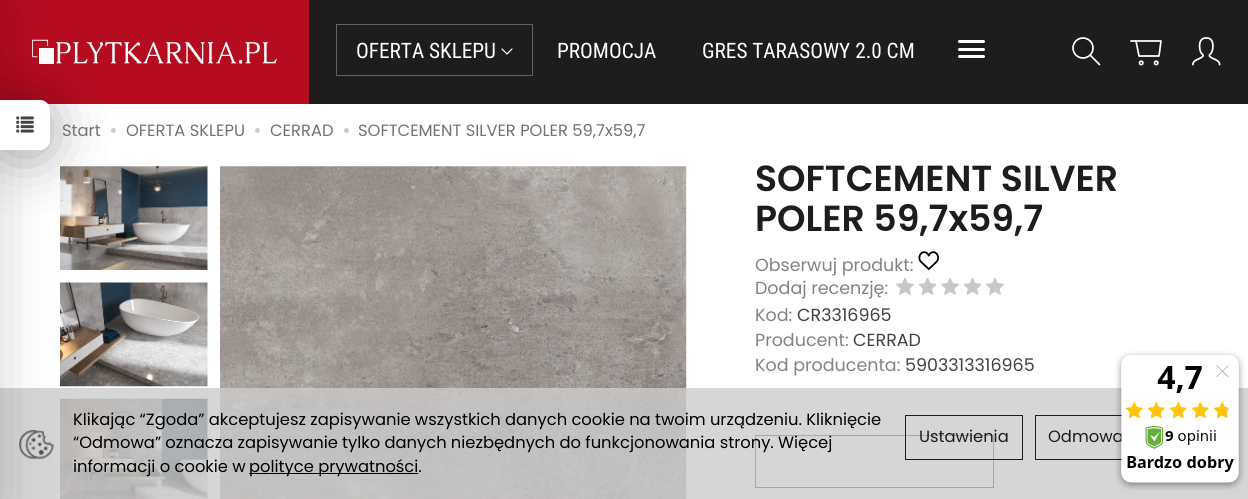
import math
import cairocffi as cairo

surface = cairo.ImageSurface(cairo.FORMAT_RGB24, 1248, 499)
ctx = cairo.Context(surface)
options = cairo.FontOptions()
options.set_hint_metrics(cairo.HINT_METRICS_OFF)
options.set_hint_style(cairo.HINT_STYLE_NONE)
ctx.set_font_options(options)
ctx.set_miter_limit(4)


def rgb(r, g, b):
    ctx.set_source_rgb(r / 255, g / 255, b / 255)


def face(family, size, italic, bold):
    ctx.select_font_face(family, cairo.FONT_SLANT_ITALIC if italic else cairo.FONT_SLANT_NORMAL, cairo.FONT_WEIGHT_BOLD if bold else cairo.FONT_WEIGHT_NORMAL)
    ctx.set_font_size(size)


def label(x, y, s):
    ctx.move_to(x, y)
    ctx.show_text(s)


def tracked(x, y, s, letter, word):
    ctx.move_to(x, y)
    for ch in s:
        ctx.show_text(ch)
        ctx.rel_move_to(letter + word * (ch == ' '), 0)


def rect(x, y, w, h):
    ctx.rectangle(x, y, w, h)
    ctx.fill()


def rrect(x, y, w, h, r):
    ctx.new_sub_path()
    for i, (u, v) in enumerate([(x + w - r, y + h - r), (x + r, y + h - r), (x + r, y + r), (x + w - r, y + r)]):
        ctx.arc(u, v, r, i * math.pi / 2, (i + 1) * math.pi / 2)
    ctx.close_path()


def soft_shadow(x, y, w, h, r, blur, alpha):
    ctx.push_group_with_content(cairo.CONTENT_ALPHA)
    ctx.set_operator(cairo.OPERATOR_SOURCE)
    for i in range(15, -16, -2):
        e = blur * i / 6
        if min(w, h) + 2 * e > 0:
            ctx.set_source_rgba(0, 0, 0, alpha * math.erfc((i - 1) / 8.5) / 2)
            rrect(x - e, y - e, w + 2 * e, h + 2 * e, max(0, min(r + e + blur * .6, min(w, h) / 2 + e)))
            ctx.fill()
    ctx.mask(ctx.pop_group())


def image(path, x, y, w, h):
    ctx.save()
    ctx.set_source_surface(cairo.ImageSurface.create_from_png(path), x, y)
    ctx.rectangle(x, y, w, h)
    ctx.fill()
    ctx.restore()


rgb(255, 255, 255)
ctx.paint()
rgb(182, 12, 32)
rect(0, 0, 309, 104)
image('image1.png', 32, 39, 245, 25)
image('image3.png', 60, 166, 148, 104)
image('image5.png', 60, 282, 148, 105)
image('image6.png', 60, 398, 148, 101)
image('image4.png', 220, 166, 467, 333)
ctx.rectangle(755.5, 435.5, 238, 52)
rgb(30, 29, 29)
ctx.set_line_width(1)
ctx.stroke()
ctx.set_source_rgba(0.8, 0.8, 0.8, 0.8)
rect(0, 388, 1248, 111)
image('image10.png', 19, 430, 35, 29)
rgb(0, 0, 0)
soft_shadow(-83, 5, 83, 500, 0, 27.5, 0.17)
rgb(204, 204, 204)
ctx.arc(113.5, 130.5, 2.5, 0, 2 * math.pi)
ctx.fill()
rgb(0, 0, 0)
soft_shadow(0, 105, 50, 50, 10, 28, 0.35)
rgb(255, 255, 255)
ctx.new_path()
ctx.move_to(0, 100)
ctx.line_to(40, 100)
ctx.curve_to(45.5, 100, 50, 104.5, 50, 110)
ctx.line_to(50, 140)
ctx.curve_to(50, 145.5, 45.5, 150, 40, 150)
ctx.line_to(0, 150)
ctx.close_path()
ctx.fill()
image('image0.png', 16, 116, 18, 17)
rgb(30, 29, 29)
rect(309, 0, 939, 104)
ctx.rectangle(336.5, 24.5, 196, 51)
rgb(97, 97, 97)
ctx.stroke()
face('Roboto Condensed', 21.25, 0, 0)
rgb(255, 255, 255)
label(356, 58, 'OFERTA SKLEPU')
ctx.new_path()
ctx.move_to(502, 49)
ctx.line_to(507, 54)
ctx.line_to(512, 49)
ctx.set_line_width(1.2)
ctx.set_line_cap(cairo.LINE_CAP_ROUND)
ctx.set_line_join(cairo.LINE_JOIN_ROUND)
ctx.stroke()
label(557, 58, 'PROMOCJA')
label(702, 58, 'GRES TARASOWY 2.0 CM')
rrect(958, 40, 27, 3, 1.5)
ctx.fill()
rrect(958, 48, 27, 3, 1.5)
ctx.fill()
rrect(958, 55, 27, 3, 1.5)
ctx.fill()
ctx.new_path()
ctx.move_to(1090.5, 55.5)
ctx.line_to(1099.5, 64.5)
ctx.set_line_width(1.7)
ctx.stroke()
ctx.arc(1083, 48, 10, 0, 2 * math.pi)
ctx.set_line_cap(cairo.LINE_CAP_BUTT)
ctx.set_line_join(cairo.LINE_JOIN_MITER)
ctx.stroke()
ctx.new_path()
ctx.move_to(1136, 41)
ctx.line_to(1161, 41)
ctx.line_to(1159, 56)
ctx.line_to(1139, 56)
ctx.close_path()
ctx.set_line_cap(cairo.LINE_CAP_ROUND)
ctx.set_line_join(cairo.LINE_JOIN_ROUND)
ctx.stroke()
ctx.new_path()
ctx.move_to(1136, 41)
ctx.line_to(1131, 41)
ctx.stroke()
ctx.arc(1141.2, 62.9, 1.7, 0, 2 * math.pi)
ctx.set_line_cap(cairo.LINE_CAP_BUTT)
ctx.set_line_join(cairo.LINE_JOIN_MITER)
ctx.stroke()
ctx.arc(1156.2, 62.9, 1.7, 0, 2 * math.pi)
ctx.stroke()
image('image2.png', 1192, 37, 29, 29)
face('Poppins', 16.35, 0, 0)
rgb(114, 114, 114)
label(62, 136, 'Start')
label(126, 136, 'OFERTA SKLEPU')
rgb(204, 204, 204)
ctx.new_path()
ctx.arc(257.5, 130.5, 2.5, 0, 2 * math.pi)
ctx.fill()
rgb(114, 114, 114)
label(270, 136, 'CERRAD')
rgb(204, 204, 204)
ctx.new_path()
ctx.arc(346.5, 130.5, 2.5, 0, 2 * math.pi)
ctx.fill()
rgb(114, 114, 114)
label(358, 136, 'SOFTCEMENT SILVER POLER 59,7x59,7')
face('Poppins SemiBold', 36.25, 0, 0)
rgb(30, 29, 29)
label(755, 191, 'SOFTCEMENT SILVER')
label(755, 231, 'POLER 59,7x59,7')
face('Poppins', 17.5, 0, 0)
rgb(131, 131, 131)
label(755, 271, 'Obserwuj produkt:')
image('image7.png', 918, 251, 21, 19)
label(755, 294, 'Dodaj recenzję:')
image('image8.png', 896, 278, 18, 17)
image('image9.png', 919, 278, 17, 17)
image('image8.png', 941, 278, 18, 17)
image('image9.png', 964, 278, 17, 17)
image('image8.png', 986, 278, 18, 17)
label(755, 321, 'Kod:')
rgb(67, 67, 67)
label(797, 321, 'CR3316965')
rgb(131, 131, 131)
label(755, 346, 'Producent:')
rgb(67, 67, 67)
label(853, 346, 'CERRAD')
rgb(131, 131, 131)
label(755, 371, 'Kod producenta:')
rgb(67, 67, 67)
label(905, 371, '5903313316965')
face('Poppins', 16.35, 0, 0)
rgb(0, 0, 0)
tracked(73, 425, 'Klikając “Zgoda” akceptujesz zapisywanie wszystkich danych cookie na twoim urządzeniu. Kliknięcie', 0, -0.1)
tracked(73, 448, '“Odmowa” oznacza zapisywanie tylko danych niezbędnych do funkcjonowania strony. Więcej', 0, -0.1)
label(73, 472, 'informacji o cookie w')
rect(249, 473, 169, 1)
label(249, 472, 'polityce prywatności.')
ctx.rectangle(905.5, 415.5, 117, 44)
rgb(30, 29, 29)
ctx.set_line_width(1)
ctx.stroke()
label(919, 442, 'Ustawienia')
ctx.rectangle(1035.5, 415.5, 102, 44)
ctx.stroke()
label(1048, 442, 'Odmowa')
image('image11.png', 1115, 351, 130, 140)
surface.write_to_png('render.png')
